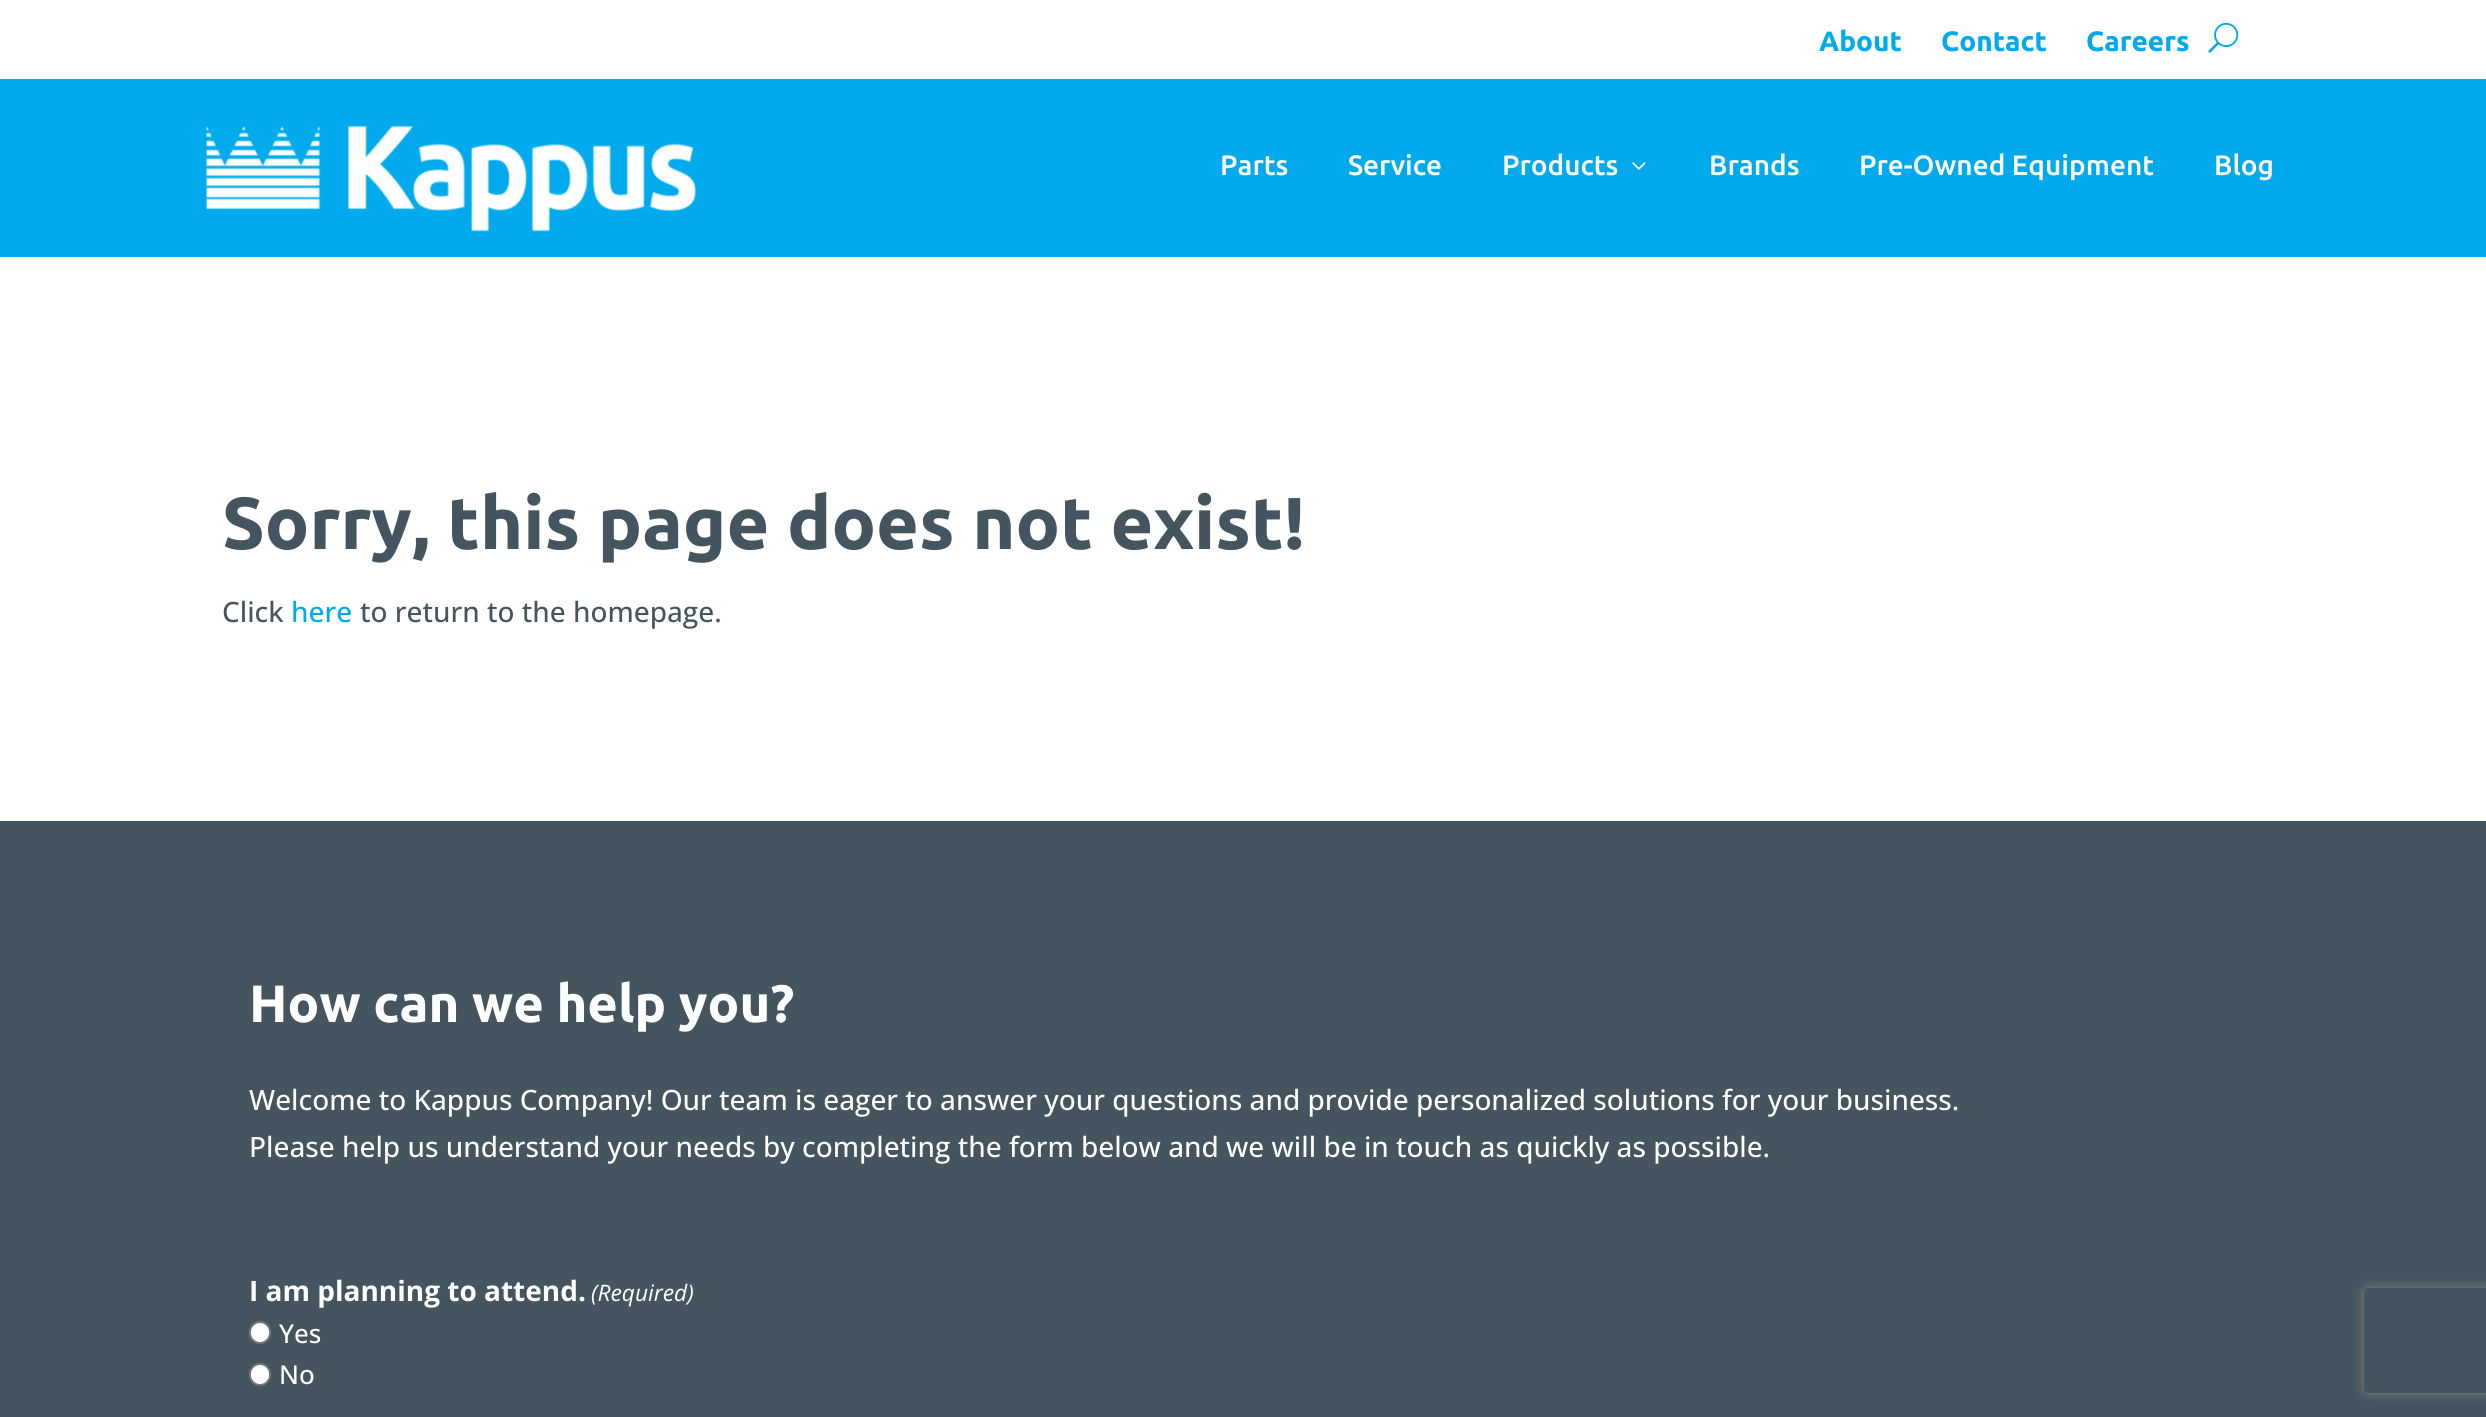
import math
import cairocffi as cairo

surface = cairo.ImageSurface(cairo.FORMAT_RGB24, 2486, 1417)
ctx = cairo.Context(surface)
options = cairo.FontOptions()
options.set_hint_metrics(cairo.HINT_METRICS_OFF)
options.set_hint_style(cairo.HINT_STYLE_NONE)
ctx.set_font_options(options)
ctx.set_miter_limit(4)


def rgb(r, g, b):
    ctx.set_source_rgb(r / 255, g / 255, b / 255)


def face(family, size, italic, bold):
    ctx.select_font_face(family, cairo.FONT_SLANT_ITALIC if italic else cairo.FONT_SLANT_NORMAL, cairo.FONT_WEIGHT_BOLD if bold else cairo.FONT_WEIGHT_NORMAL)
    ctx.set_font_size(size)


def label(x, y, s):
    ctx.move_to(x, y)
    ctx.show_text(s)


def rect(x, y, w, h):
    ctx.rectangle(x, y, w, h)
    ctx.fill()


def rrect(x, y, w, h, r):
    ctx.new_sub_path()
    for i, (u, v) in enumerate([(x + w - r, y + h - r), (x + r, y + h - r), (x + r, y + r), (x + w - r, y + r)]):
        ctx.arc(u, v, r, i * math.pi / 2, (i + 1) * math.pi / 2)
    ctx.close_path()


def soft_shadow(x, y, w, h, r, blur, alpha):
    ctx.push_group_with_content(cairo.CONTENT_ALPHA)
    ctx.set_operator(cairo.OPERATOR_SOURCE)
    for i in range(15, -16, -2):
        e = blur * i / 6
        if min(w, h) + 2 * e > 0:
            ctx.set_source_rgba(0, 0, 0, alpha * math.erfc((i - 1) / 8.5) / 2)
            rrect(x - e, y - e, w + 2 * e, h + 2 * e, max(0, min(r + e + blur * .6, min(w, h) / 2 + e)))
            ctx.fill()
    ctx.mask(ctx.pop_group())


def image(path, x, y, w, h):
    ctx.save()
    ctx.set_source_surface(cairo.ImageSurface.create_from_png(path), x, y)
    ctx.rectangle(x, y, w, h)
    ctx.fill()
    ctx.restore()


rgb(255, 255, 255)
ctx.paint()
face('Ubuntu', 28, 0, 1)
rgb(0, 170, 237)
label(1819, 51, 'About')
label(1941, 51, 'Contact')
label(2086, 51, 'Careers')
image('image0.png', 2208, 22, 31, 31)
rect(0, 79, 2486, 178)
image('image1.png', 205, 125, 491, 107)
face('Ubuntu Medium', 28, 0, 0)
rgb(255, 255, 255)
label(1220, 175, 'Parts')
label(1348, 175, 'Service')
label(1502, 175, 'Products')
image('image2.png', 1632, 162, 14, 8)
label(1709, 175, 'Brands')
label(1859, 175, 'Pre-Owned Equipment')
label(2214, 175, 'Blog')
face('Ubuntu', 73.5, 0, 1)
rgb(69, 85, 96)
label(222, 549, 'Sorry, this page does not exist!')
face('Open Sans Medium', 28, 0, 0)
label(222, 622, 'Click')
rgb(0, 170, 237)
label(291, 622, 'here')
rgb(69, 85, 96)
label(360, 622, 'to return to the homepage.')
rect(0, 821, 2486, 596)
face('Ubuntu', 52.5, 0, 1)
rgb(255, 255, 255)
label(249, 1022, 'How can we help you?')
face('Open Sans Medium', 28, 0, 0)
label(249, 1110, 'Welcome to Kappus Company! Our team is eager to answer your questions and provide personalized solutions for your business.')
label(249, 1157, 'Please help us understand your needs by completing the form below and we will be in touch as quickly as possible.')
face('Open Sans', 28, 0, 1)
label(249, 1301, 'I am planning to attend.')
face('Open Sans', 22.75, 1, 0)
label(591, 1301, '(Required)')
rrect(250, 1322, 20, 21, 10)
ctx.fill_preserve()
rgb(118, 118, 118)
ctx.stroke()
face('Open Sans Medium', 26, 0, 0)
rgb(255, 255, 255)
label(279, 1343, 'Yes')
rrect(250, 1364, 20, 21, 10)
ctx.fill_preserve()
rgb(118, 118, 118)
ctx.stroke()
rgb(255, 255, 255)
label(279, 1384, 'No')
ctx.save()
ctx.set_fill_rule(cairo.FILL_RULE_EVEN_ODD)
ctx.new_path()
ctx.move_to(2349, 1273)
ctx.line_to(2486, 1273)
ctx.line_to(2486, 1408)
ctx.line_to(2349, 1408)
ctx.close_path()
ctx.move_to(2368, 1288)
ctx.line_to(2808, 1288)
ctx.curve_to(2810, 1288, 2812, 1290, 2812, 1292)
ctx.line_to(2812, 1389)
ctx.curve_to(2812, 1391, 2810, 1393, 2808, 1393)
ctx.line_to(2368, 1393)
ctx.curve_to(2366, 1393, 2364, 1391, 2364, 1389)
ctx.line_to(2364, 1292)
ctx.curve_to(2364, 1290, 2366, 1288, 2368, 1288)
ctx.close_path()
ctx.clip()
rgb(128, 128, 128)
soft_shadow(2364, 1288, 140, 105, 4, 4.5, 1)
ctx.restore()
surface.write_to_png('render.png')
